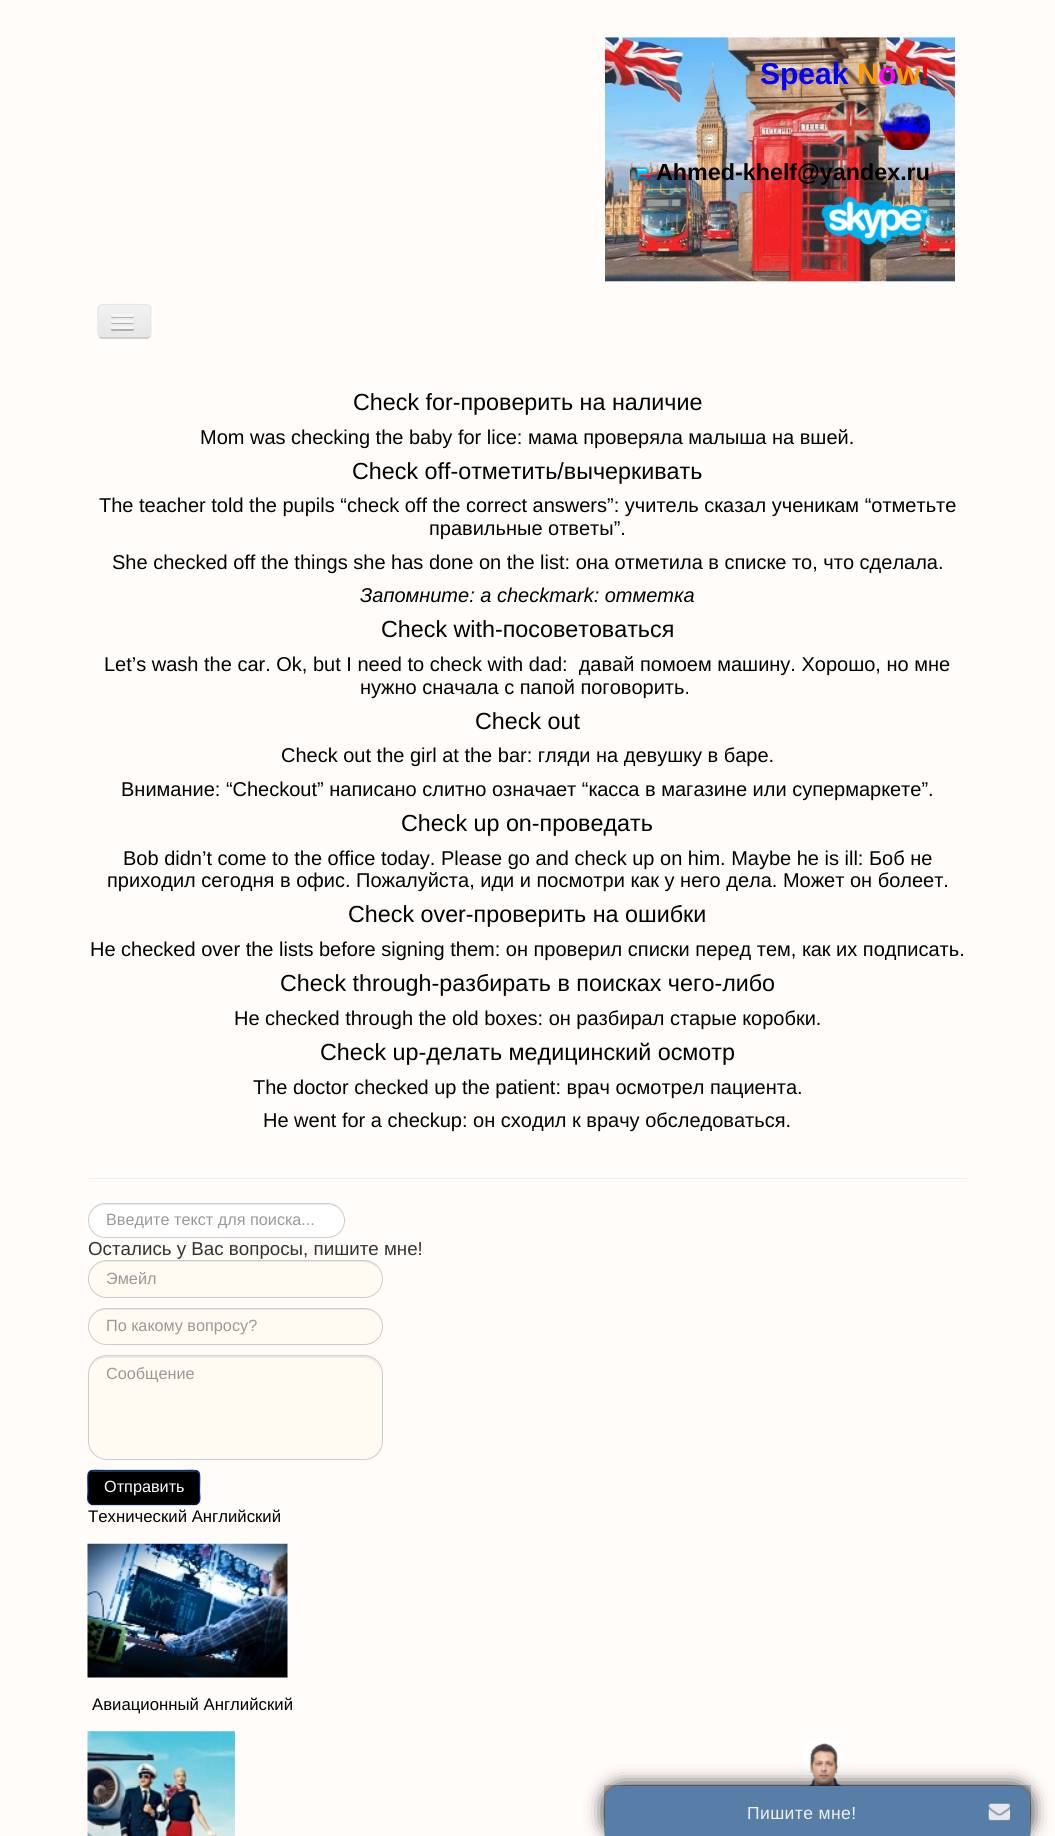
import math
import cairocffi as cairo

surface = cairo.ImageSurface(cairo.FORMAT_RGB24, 1055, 1836)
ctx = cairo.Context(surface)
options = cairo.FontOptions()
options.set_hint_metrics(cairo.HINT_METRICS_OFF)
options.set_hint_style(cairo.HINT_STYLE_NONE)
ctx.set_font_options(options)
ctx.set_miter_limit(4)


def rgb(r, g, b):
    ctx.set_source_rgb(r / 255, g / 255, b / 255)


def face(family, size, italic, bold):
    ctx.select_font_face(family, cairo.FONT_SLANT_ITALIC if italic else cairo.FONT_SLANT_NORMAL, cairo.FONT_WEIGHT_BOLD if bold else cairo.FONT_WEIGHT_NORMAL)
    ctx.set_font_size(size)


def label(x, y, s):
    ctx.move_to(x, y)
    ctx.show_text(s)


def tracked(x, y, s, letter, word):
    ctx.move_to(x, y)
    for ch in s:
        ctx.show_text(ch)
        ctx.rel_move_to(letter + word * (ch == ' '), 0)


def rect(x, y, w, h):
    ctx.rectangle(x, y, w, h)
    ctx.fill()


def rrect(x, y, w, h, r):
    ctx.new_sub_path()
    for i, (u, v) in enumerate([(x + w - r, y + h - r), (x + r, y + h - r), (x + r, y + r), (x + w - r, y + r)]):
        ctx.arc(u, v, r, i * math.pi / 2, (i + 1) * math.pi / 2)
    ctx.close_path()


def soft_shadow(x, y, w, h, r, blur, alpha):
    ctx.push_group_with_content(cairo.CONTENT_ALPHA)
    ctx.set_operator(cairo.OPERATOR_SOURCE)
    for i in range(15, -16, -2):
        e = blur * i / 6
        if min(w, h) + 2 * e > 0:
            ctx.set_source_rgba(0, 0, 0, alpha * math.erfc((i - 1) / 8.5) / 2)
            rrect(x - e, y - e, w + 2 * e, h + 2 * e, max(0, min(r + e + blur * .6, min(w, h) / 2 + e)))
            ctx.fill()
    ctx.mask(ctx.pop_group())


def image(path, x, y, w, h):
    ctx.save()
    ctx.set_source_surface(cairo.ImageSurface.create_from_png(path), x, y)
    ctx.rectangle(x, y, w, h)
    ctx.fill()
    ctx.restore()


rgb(255, 252, 250)
ctx.paint()
image('image0.png', 605, 37, 350, 245)
face('Liberation Sans', 30, 0, 1)
rgb(0, 0, 255)
label(760, 84, 'Speak')
rgb(255, 153, 0)
label(857, 84, 'N')
rgb(255, 0, 255)
label(878, 84, 'o')
rgb(255, 153, 0)
label(897, 84, 'w')
rgb(255, 0, 0)
label(920, 84, '!')
image('image1.png', 826, 100, 48, 48)
image('image2.png', 882, 102, 48, 48)
image('image3.png', 630, 167, 20, 18)
face('Liberation Sans', 23.3, 0, 1)
rgb(0, 0, 0)
label(656, 180, 'Ahmed-khelf@yandex.ru')
image('image4.png', 821, 196, 109, 49)
rgb(237, 237, 237)
rrect(98, 304, 53, 35, 5)
ctx.fill()
ctx.save()
rrect(98, 304, 53, 35, 5)
ctx.clip()
gradient = cairo.LinearGradient(124, 305, 124, 338)
gradient.add_color_stop_rgba(0, 0.949, 0.949, 0.949, 1)
gradient.add_color_stop_rgba(1, 0.902, 0.902, 0.902, 1)
ctx.set_source(gradient)
rect(98, 305, 53, 33)
ctx.restore()
ctx.new_path()
ctx.move_to(149.5, 337)
ctx.curve_to(148.5, 337.5, 147.5, 338, 146, 338)
ctx.line_to(102.5, 338)
ctx.curve_to(101.5, 338, 100, 337.5, 99.5, 337)
rgb(191, 191, 191)
ctx.set_line_width(1.2)
ctx.stroke()
ctx.new_path()
ctx.move_to(99.5, 337)
ctx.curve_to(97, 334.5, 98, 324.5, 98, 321)
ctx.curve_to(98, 305.5, 95, 304.5, 110, 304.5)
ctx.line_to(139, 304.5)
ctx.curve_to(154, 304.5, 150.5, 305.5, 150.5, 321)
ctx.curve_to(150.5, 324.5, 152, 334.5, 149.5, 337)
rgb(230, 230, 230)
ctx.stroke()
rgb(178, 178, 178)
ctx.new_path()
ctx.move_to(111.5, 315.5)
ctx.line_to(111, 317)
ctx.curve_to(111.5, 319, 115, 318, 116, 318)
ctx.line_to(129, 318)
ctx.curve_to(130, 318, 133.5, 319, 134, 317)
ctx.line_to(133.5, 315.5)
ctx.curve_to(133.5, 316, 133, 316, 132.5, 316)
ctx.line_to(112.5, 316)
ctx.curve_to(112, 316, 111.5, 316, 111.5, 315.5)
ctx.close_path()
ctx.fill()
rgb(245, 245, 245)
rrect(111, 314, 23, 3, 1.5)
ctx.fill()
rgb(176, 176, 176)
ctx.new_path()
ctx.move_to(111.5, 321.5)
ctx.curve_to(109, 324.5, 115.5, 324, 116, 324)
ctx.line_to(129, 324)
ctx.curve_to(129.5, 324, 136, 324.5, 133.5, 321.5)
ctx.curve_to(133.5, 322, 133, 322.5, 132.5, 322.5)
ctx.line_to(112.5, 322.5)
ctx.curve_to(112, 322.5, 111.5, 322, 111.5, 321.5)
ctx.close_path()
ctx.fill()
rgb(245, 245, 245)
rrect(111, 320, 23, 3, 1.5)
ctx.fill()
rgb(175, 175, 175)
ctx.new_path()
ctx.move_to(111.5, 328.5)
ctx.curve_to(111, 328.5, 111, 329.5, 111, 330)
ctx.curve_to(111.5, 332, 115, 331, 116, 331)
ctx.line_to(133, 331)
ctx.curve_to(134, 330.5, 134.5, 329, 133.5, 328.5)
ctx.curve_to(132.5, 329, 112.5, 329, 111.5, 328.5)
ctx.close_path()
ctx.fill()
rgb(245, 245, 245)
rrect(111, 326, 23, 3, 1.5)
ctx.fill()
face('Liberation Sans', 23.3, 0, 0)
rgb(0, 0, 0)
label(353, 410, 'Check for-проверить на наличие')
face('Liberation Sans', 20, 0, 0)
label(200, 444, 'Mom was checking the baby for lice: мама проверяла малыша на вшей.')
face('Liberation Sans', 23.3, 0, 0)
label(352, 479, 'Check off-отметить/вычеркивать')
face('Liberation Sans', 20, 0, 0)
label(99, 512, 'The teacher told the pupils “check off the correct answers”: учитель сказал ученикам “отметьте')
label(429, 535, 'правильные ответы”.')
label(112, 569, 'She checked off the things she has done on the list: она отметила в списке то, что сделала.')
face('Liberation Sans', 20, 1, 0)
label(360, 602, 'Запомните: a checkmark: отметка')
face('Liberation Sans', 23.3, 0, 0)
label(381, 637, 'Check with-посоветоваться')
face('Liberation Sans', 20, 0, 0)
label(104, 671, 'Let’s wash the car. Ok, but I need to check with dad:  давай помоем машину. Хорошо, но мне')
label(360, 694, 'нужно сначала с папой поговорить.')
face('Liberation Sans', 23.3, 0, 0)
label(475, 729, 'Check out')
face('Liberation Sans', 20, 0, 0)
label(281, 762, 'Check out the girl at the bar: гляди на девушку в баре.')
label(121, 796, 'Внимание: “Checkout” написано слитно означает “касса в магазине или супермаркете”.')
face('Liberation Sans', 23.3, 0, 0)
label(401, 831, 'Check up on-проведать')
face('Liberation Sans', 20, 0, 0)
label(123, 865, 'Bob didn’t come to the office today. Please go and check up on him. Maybe he is ill: Боб не')
label(107, 887, 'приходил сегодня в офис. Пожалуйста, иди и посмотри как у него дела. Может он болеет.')
face('Liberation Sans', 23.3, 0, 0)
label(348, 922, 'Check over-проверить на ошибки')
face('Liberation Sans', 20, 0, 0)
label(90, 956, 'He checked over the lists before signing them: он проверил списки перед тем, как их подписать.')
face('Liberation Sans', 23.3, 0, 0)
label(280, 991, 'Check through-разбирать в поисках чего-либо')
face('Liberation Sans', 20, 0, 0)
label(234, 1025, 'He checked through the old boxes: он разбирал старые коробки.')
face('Liberation Sans', 23.3, 0, 0)
label(320, 1060, 'Check up-делать медицинский осмотр')
face('Liberation Sans', 20, 0, 0)
label(253, 1094, 'The doctor checked up the patient: врач осмотрел пациента.')
label(263, 1127, 'He went for a checkup: он сходил к врачу обследоваться.')
rgb(238, 238, 238)
rect(88, 1178, 880, 1)
rgb(255, 255, 255)
rect(88, 1179, 880, 1)
rrect(88, 1203, 257, 35, 17.5)
ctx.fill()
rgb(236, 236, 236)
ctx.new_path()
ctx.move_to(105, 1205)
ctx.line_to(328, 1205)
ctx.curve_to(336, 1205, 344, 1212, 344, 1221)
ctx.curve_to(344, 1212, 337, 1204, 328, 1204)
ctx.line_to(105, 1204)
ctx.curve_to(96, 1204, 89, 1212, 89, 1220)
ctx.curve_to(89, 1212, 96, 1205, 105, 1205)
ctx.close_path()
ctx.fill()
rrect(88.5, 1203.5, 256, 34, 17)
rgb(204, 204, 204)
ctx.set_line_width(1)
ctx.stroke()
face('Liberation Sans', 16.25, 0, 0)
rgb(153, 153, 153)
label(106, 1225, 'Введите текст для поиска...')
face('Liberation Sans', 18.75, 0, 0)
rgb(51, 51, 51)
label(88, 1255, 'Остались у Вас вопросы, пишите мне!')
rgb(255, 250, 242)
rrect(88, 1260, 295, 38, 19)
ctx.fill()
rgb(236, 231, 224)
ctx.new_path()
ctx.move_to(106, 1262)
ctx.line_to(364, 1262)
ctx.line_to(371, 1264)
ctx.curve_to(377, 1266, 380, 1271, 381, 1277)
ctx.curve_to(380, 1268, 373, 1261, 364, 1261)
ctx.line_to(106, 1261)
ctx.curve_to(99, 1261, 92, 1266, 90, 1273)
ctx.curve_to(92, 1267, 98, 1262, 106, 1262)
ctx.close_path()
ctx.fill()
rrect(88.5, 1260.5, 294, 37, 18.5)
rgb(204, 204, 204)
ctx.stroke()
face('Liberation Sans', 16.25, 0, 0)
rgb(153, 153, 153)
label(106, 1284, 'Эмейл')
rgb(255, 250, 242)
rrect(88, 1308, 295, 37, 18.5)
ctx.fill()
rgb(236, 231, 224)
ctx.new_path()
ctx.move_to(106, 1310)
ctx.line_to(364, 1310)
ctx.line_to(371, 1311)
ctx.curve_to(376, 1314, 380, 1318, 381, 1323)
ctx.curve_to(379, 1315, 372, 1309, 364, 1309)
ctx.line_to(106, 1309)
ctx.curve_to(99, 1309, 93, 1313, 90, 1320)
ctx.curve_to(93, 1314, 98, 1310, 106, 1310)
ctx.close_path()
ctx.fill()
rrect(88.5, 1308.5, 294, 36, 18)
rgb(204, 204, 204)
ctx.stroke()
rgb(153, 153, 153)
label(106, 1331, 'По какому вопросу?')
rgb(255, 250, 242)
rrect(88, 1355, 295, 105, 19)
ctx.fill()
rgb(236, 231, 224)
ctx.new_path()
ctx.move_to(106, 1358)
ctx.line_to(364, 1358)
ctx.curve_to(373, 1358, 381, 1365, 381, 1375)
ctx.line_to(381, 1374)
ctx.curve_to(381, 1364, 373, 1356, 363, 1356)
ctx.line_to(107, 1356)
ctx.curve_to(97, 1356, 89, 1364, 89, 1374)
ctx.line_to(89, 1375)
ctx.curve_to(89, 1365, 97, 1358, 106, 1358)
ctx.close_path()
ctx.fill()
rrect(88.5, 1355.5, 294, 104, 18.5)
rgb(204, 204, 204)
ctx.stroke()
rgb(153, 153, 153)
label(106, 1379, 'Сообщение')
rgb(0, 0, 0)
soft_shadow(88, 1471, 112, 35, 5, 1, 0.05)
rgb(0, 0, 0)
rrect(88, 1470, 112, 35, 5)
ctx.fill()
rgb(51, 51, 51)
ctx.new_path()
ctx.move_to(92, 1472)
ctx.line_to(195, 1472)
ctx.curve_to(197, 1472, 199, 1474, 199, 1476)
ctx.curve_to(199, 1467, 182, 1471, 178, 1471)
ctx.line_to(110, 1471)
ctx.curve_to(106, 1471, 89, 1467, 89, 1476)
ctx.curve_to(89, 1474, 90, 1472, 92, 1472)
ctx.close_path()
ctx.fill()
ctx.new_path()
ctx.move_to(198, 1503)
ctx.line_to(195.5, 1504.5)
ctx.line_to(92, 1504.5)
ctx.line_to(89.5, 1503)
rgb(0, 22, 65)
ctx.set_line_width(1.2)
ctx.stroke()
ctx.new_path()
ctx.move_to(89.5, 1503)
ctx.curve_to(86.5, 1500.5, 88, 1495, 88, 1491.5)
ctx.curve_to(88, 1467, 84, 1470.5, 109.5, 1470.5)
ctx.line_to(178, 1470.5)
ctx.curve_to(203.5, 1470.5, 199.5, 1467, 199.5, 1491.5)
ctx.curve_to(199.5, 1495, 201, 1500.5, 198, 1503)
rgb(0, 47, 141)
ctx.stroke()
rgb(255, 255, 255)
label(104, 1492, 'Отправить')
face('Liberation Sans', 16.75, 0, 0)
rgb(0, 0, 0)
label(88, 1522, 'Технический Английский')
image('image5.png', 87, 1543, 201, 135)
label(92, 1710, 'Авиационный Английский')
image('image6.png', 87, 1731, 148, 105)
image('image7.png', 803, 1742, 39, 44)
rgb(17, 17, 17)
soft_shadow(605, 1786, 425, 50, 16, 9.5, 1)
image('image8.png', 604, 1785, 427, 51)
rgb(86, 126, 166)
ctx.new_path()
ctx.move_to(619, 1786)
ctx.line_to(1016, 1786)
ctx.curve_to(1023.5, 1786, 1030, 1792.5, 1030, 1800)
ctx.line_to(1030, 1836)
ctx.line_to(605, 1836)
ctx.line_to(605, 1800)
ctx.curve_to(605, 1792.5, 611.5, 1786, 619, 1786)
ctx.close_path()
ctx.fill()
face('Liberation Sans', 17.5, 0, 0)
rgb(241, 241, 241)
tracked(747, 1819, 'Пишите мне!', 0.4, 0)
image('image9.png', 988, 1803, 22, 18)
surface.write_to_png('render.png')
